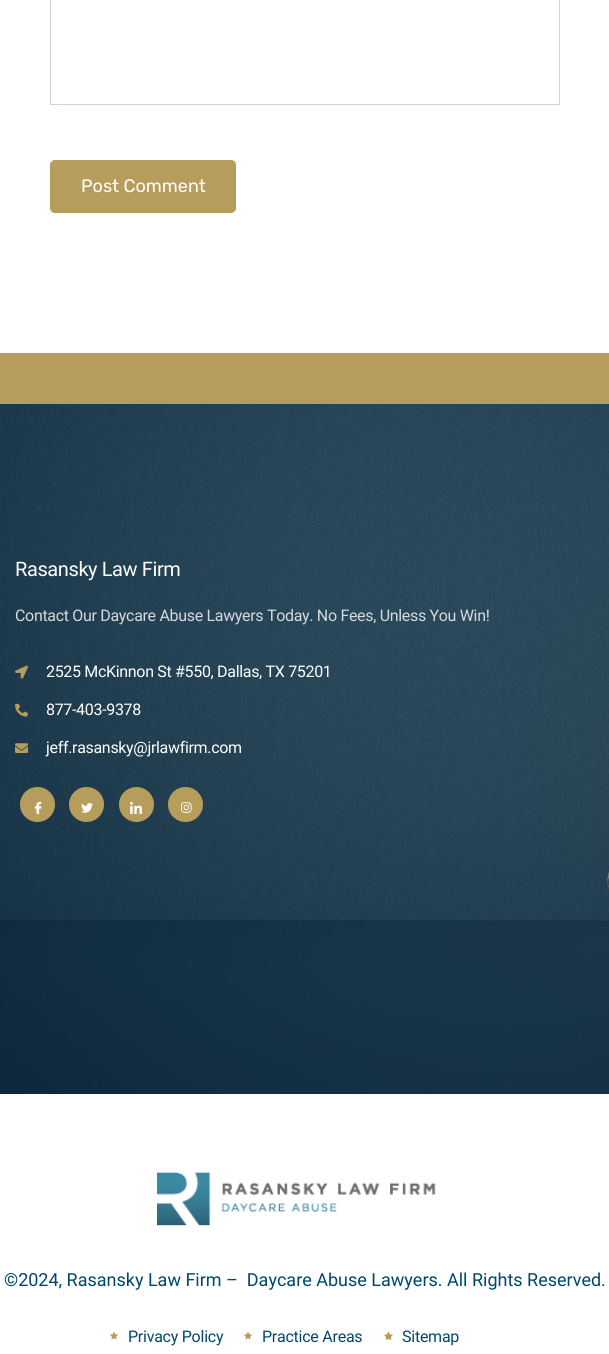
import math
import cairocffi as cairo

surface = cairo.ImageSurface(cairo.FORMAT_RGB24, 609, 1354)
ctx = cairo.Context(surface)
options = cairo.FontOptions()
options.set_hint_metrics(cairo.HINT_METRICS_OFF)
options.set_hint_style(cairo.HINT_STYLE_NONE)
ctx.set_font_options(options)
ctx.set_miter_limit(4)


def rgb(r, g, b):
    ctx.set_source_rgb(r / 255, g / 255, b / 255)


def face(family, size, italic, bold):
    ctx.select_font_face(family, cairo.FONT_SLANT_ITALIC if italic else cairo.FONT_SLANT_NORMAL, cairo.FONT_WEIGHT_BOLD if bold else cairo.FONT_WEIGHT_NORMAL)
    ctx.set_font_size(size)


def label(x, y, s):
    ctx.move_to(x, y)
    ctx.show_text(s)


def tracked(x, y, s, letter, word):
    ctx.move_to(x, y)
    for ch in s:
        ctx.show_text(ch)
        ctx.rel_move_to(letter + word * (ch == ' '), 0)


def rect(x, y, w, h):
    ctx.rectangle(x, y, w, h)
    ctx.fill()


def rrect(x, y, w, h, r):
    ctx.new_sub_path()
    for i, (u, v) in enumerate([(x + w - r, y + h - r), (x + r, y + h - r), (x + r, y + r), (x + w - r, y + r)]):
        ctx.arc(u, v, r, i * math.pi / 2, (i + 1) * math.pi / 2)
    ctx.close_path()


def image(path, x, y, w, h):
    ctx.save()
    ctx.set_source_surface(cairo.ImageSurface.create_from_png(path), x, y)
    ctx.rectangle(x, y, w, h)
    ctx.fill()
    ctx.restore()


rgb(255, 255, 255)
ctx.paint()
ctx.rectangle(50.5, -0.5, 509, 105)
rgb(206, 212, 218)
ctx.set_line_width(1)
ctx.stroke()
rgb(183, 157, 91)
rrect(50.5, 160.5, 185, 52, 4.5)
ctx.fill_preserve()
ctx.stroke()
face('Rubik', 18, 0, 0)
rgb(255, 255, 255)
label(81, 192, 'Post Comment')
rgb(183, 157, 91)
rect(0, 353, 609, 51)
image('image0.png', 0, 404, 609, 690)
face('Roboto', 20, 0, 0)
rgb(255, 255, 255)
tracked(15, 576, 'Rasansky Law Firm', -0.4, 0)
face('Roboto', 16, 0, 0)
rgb(212, 218, 221)
tracked(15, 621, 'Contact Our Daycare Abuse Lawyers Today. No Fees, Unless You Win!', -0.32, 0)
image('image1.png', 15, 665, 13, 14)
rgb(255, 255, 255)
tracked(46, 677, '2525 McKinnon St #550, Dallas, TX 75201', -0.32, 0)
image('image2.png', 15, 703, 13, 14)
tracked(46, 715, '877-403-9378', -0.32, 0)
image('image3.png', 15, 743, 13, 10)
tracked(46, 753, 'jeff.rasansky@jrlawfirm.com', -0.32, 0)
rgb(183, 157, 91)
ctx.new_path()
ctx.arc(37.5, 804.5, 17.5, 0, 2 * math.pi)
ctx.fill()
image('image4.png', 34, 801, 8, 13)
ctx.arc(86.5, 804.5, 17.5, 0, 2 * math.pi)
ctx.fill()
image('image5.png', 81, 803, 12, 10)
ctx.arc(136.5, 804.5, 17.5, 0, 2 * math.pi)
ctx.fill()
image('image6.png', 130, 801, 12, 13)
ctx.arc(185.5, 804.5, 17.5, 0, 2 * math.pi)
ctx.fill()
image('image7.png', 181, 802, 11, 11)
image('image8.png', 157, 1172, 279, 54)
face('Roboto', 18, 0, 0)
rgb(1, 71, 106)
label(4, 1286, '©2024, Rasansky Law Firm –  Daycare Abuse Lawyers. All Rights Reserved.')
image('image9.png', 110, 1331, 8, 9)
face('Roboto', 16, 0, 0)
tracked(128, 1342, 'Privacy Policy', -0.25, 0)
image('image9.png', 244, 1331, 8, 9)
tracked(262, 1342, 'Practice Areas', -0.25, 0)
image('image10.png', 384, 1332, 9, 8)
tracked(402, 1342, 'Sitemap', -0.25, 0)
surface.write_to_png('render.png')
